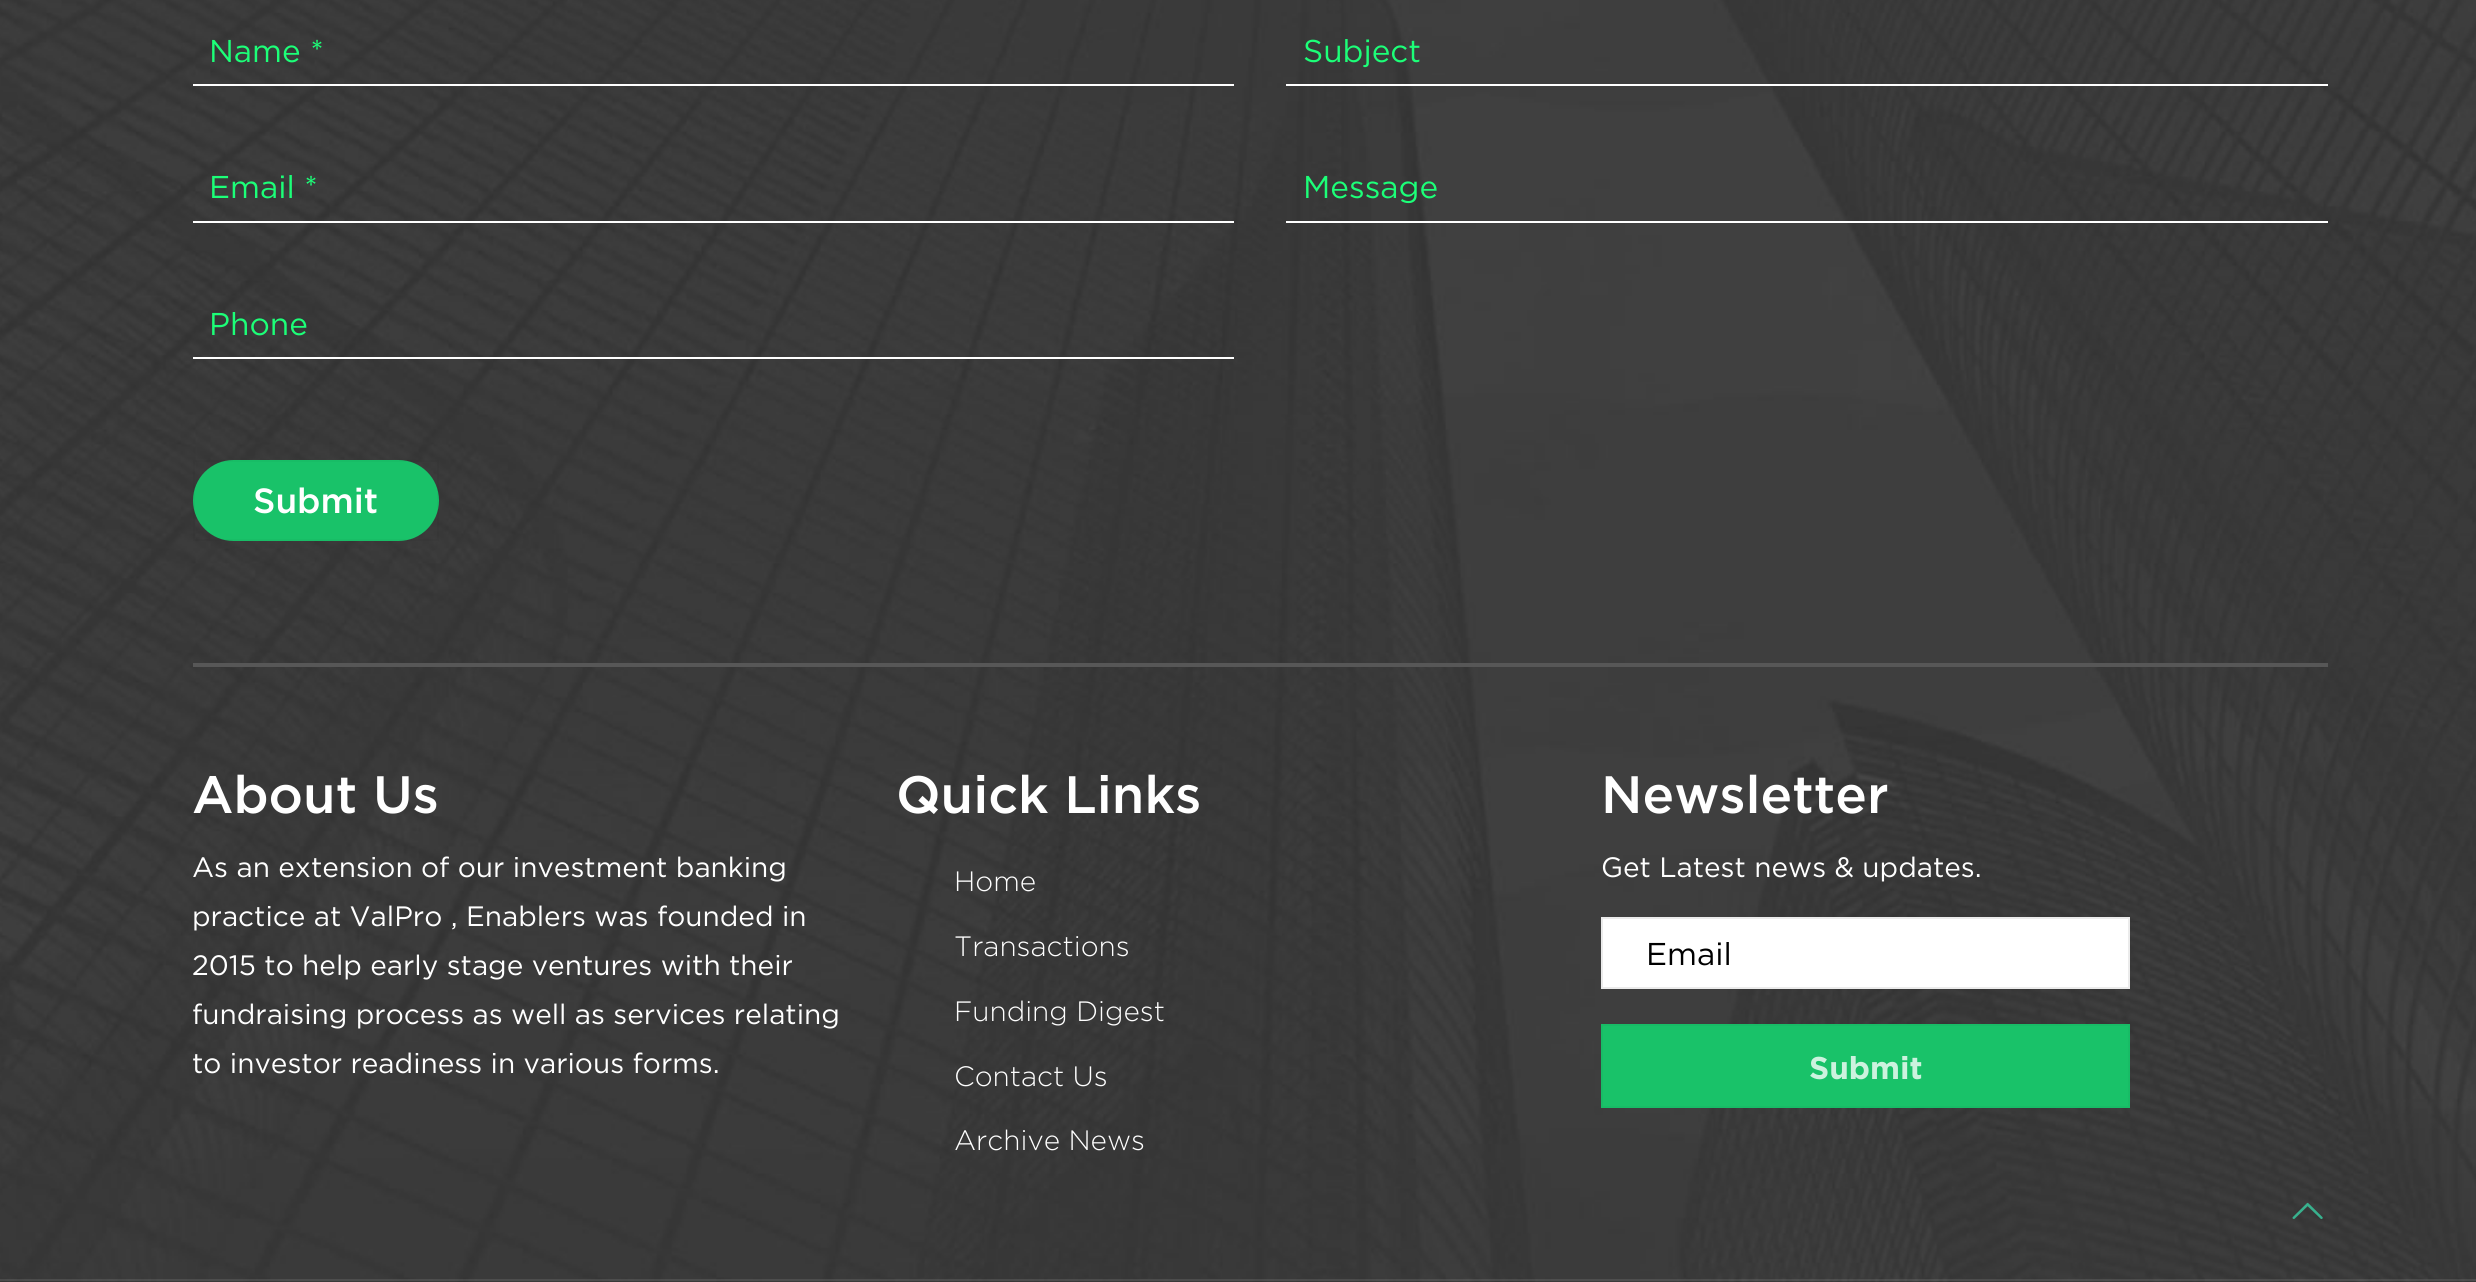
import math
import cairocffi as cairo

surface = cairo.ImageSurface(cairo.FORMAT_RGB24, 2476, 1282)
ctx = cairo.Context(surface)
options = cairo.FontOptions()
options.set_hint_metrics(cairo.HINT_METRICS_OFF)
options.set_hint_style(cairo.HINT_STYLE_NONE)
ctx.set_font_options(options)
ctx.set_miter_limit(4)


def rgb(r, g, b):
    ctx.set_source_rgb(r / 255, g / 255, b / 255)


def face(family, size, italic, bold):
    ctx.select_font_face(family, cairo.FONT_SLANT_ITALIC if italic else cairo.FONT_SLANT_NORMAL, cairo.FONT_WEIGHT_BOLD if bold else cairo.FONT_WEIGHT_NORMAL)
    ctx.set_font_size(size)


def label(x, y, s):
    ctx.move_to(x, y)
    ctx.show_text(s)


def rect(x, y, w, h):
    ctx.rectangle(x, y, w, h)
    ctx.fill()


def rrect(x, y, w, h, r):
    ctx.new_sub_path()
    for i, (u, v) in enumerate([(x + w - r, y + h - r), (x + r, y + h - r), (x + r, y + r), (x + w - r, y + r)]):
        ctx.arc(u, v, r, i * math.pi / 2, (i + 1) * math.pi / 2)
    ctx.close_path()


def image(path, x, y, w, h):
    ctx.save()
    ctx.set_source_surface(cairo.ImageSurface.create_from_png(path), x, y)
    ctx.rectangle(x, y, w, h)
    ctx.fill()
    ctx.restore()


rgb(255, 255, 255)
ctx.paint()
image('image0.png', 0, 0, 2476, 1282)
rgb(87, 87, 87)
rect(193, 663, 2135, 4)
rgb(255, 255, 255)
rect(193, 84, 1041, 2)
face('Gotham', 31.5, 0, 0)
rgb(28, 255, 120)
label(209, 62, 'Name *')
rgb(255, 255, 255)
rect(1286, 84, 1042, 2)
rgb(28, 255, 120)
label(1303, 62, 'Subject')
rgb(255, 255, 255)
rect(193, 221, 1041, 2)
rgb(28, 255, 120)
label(209, 198, 'Email *')
rgb(255, 255, 255)
rect(1286, 221, 1042, 2)
rgb(28, 255, 120)
label(1303, 198, 'Message')
rgb(255, 255, 255)
rect(193, 357, 1041, 2)
rgb(28, 255, 120)
label(209, 335, 'Phone')
rgb(25, 194, 105)
rrect(193, 460, 246, 81, 40.5)
ctx.fill()
ctx.rectangle(194, 461, 244, 79)
ctx.set_source_rgba(0, 0, 0, 0.03)
ctx.stroke()
face('Gotham Medium', 35, 0, 0)
rgb(255, 255, 255)
label(253, 513, 'Submit')
face('Gotham Medium', 52.5, 0, 0)
label(192, 813, 'About Us')
face('Gotham', 28, 0, 0)
label(192, 877, 'As an extension of our investment banking')
label(192, 926, 'practice at ValPro , Enablers was founded in')
label(192, 975, '2015 to help early stage ventures with their')
label(192, 1024, 'fundraising process as well as services relating')
label(192, 1073, 'to investor readiness in various forms.')
face('Gotham Medium', 52.5, 0, 0)
label(896, 813, 'Quick Links')
face('Gotham Light', 28, 0, 0)
label(954, 891, 'Home')
label(954, 956, 'Transactions')
label(954, 1021, 'Funding Digest')
label(954, 1086, 'Contact Us')
label(954, 1150, 'Archive News')
face('Gotham Medium', 52.5, 0, 0)
label(1601, 813, 'Newsletter')
face('Gotham', 28, 0, 0)
label(1601, 877, 'Get Latest news & updates.')
ctx.rectangle(1602, 918, 527, 70)
ctx.fill_preserve()
rgb(235, 235, 235)
ctx.stroke()
face('Gotham', 31.5, 0, 0)
rgb(0, 0, 0)
label(1646, 965, 'Email')
rgb(25, 194, 105)
ctx.rectangle(1602, 1025, 527, 82)
ctx.fill_preserve()
rgb(24, 188, 102)
ctx.stroke()
face('Gotham', 31.5, 0, 1)
rgb(204, 242, 222)
label(1809, 1079, 'Submit')
ctx.set_source_rgba(1, 1, 1, 0.1)
rect(0, 1279, 2476, 2)
image('image1.png', 2292, 1202, 31, 17)
surface.write_to_png('render.png')
